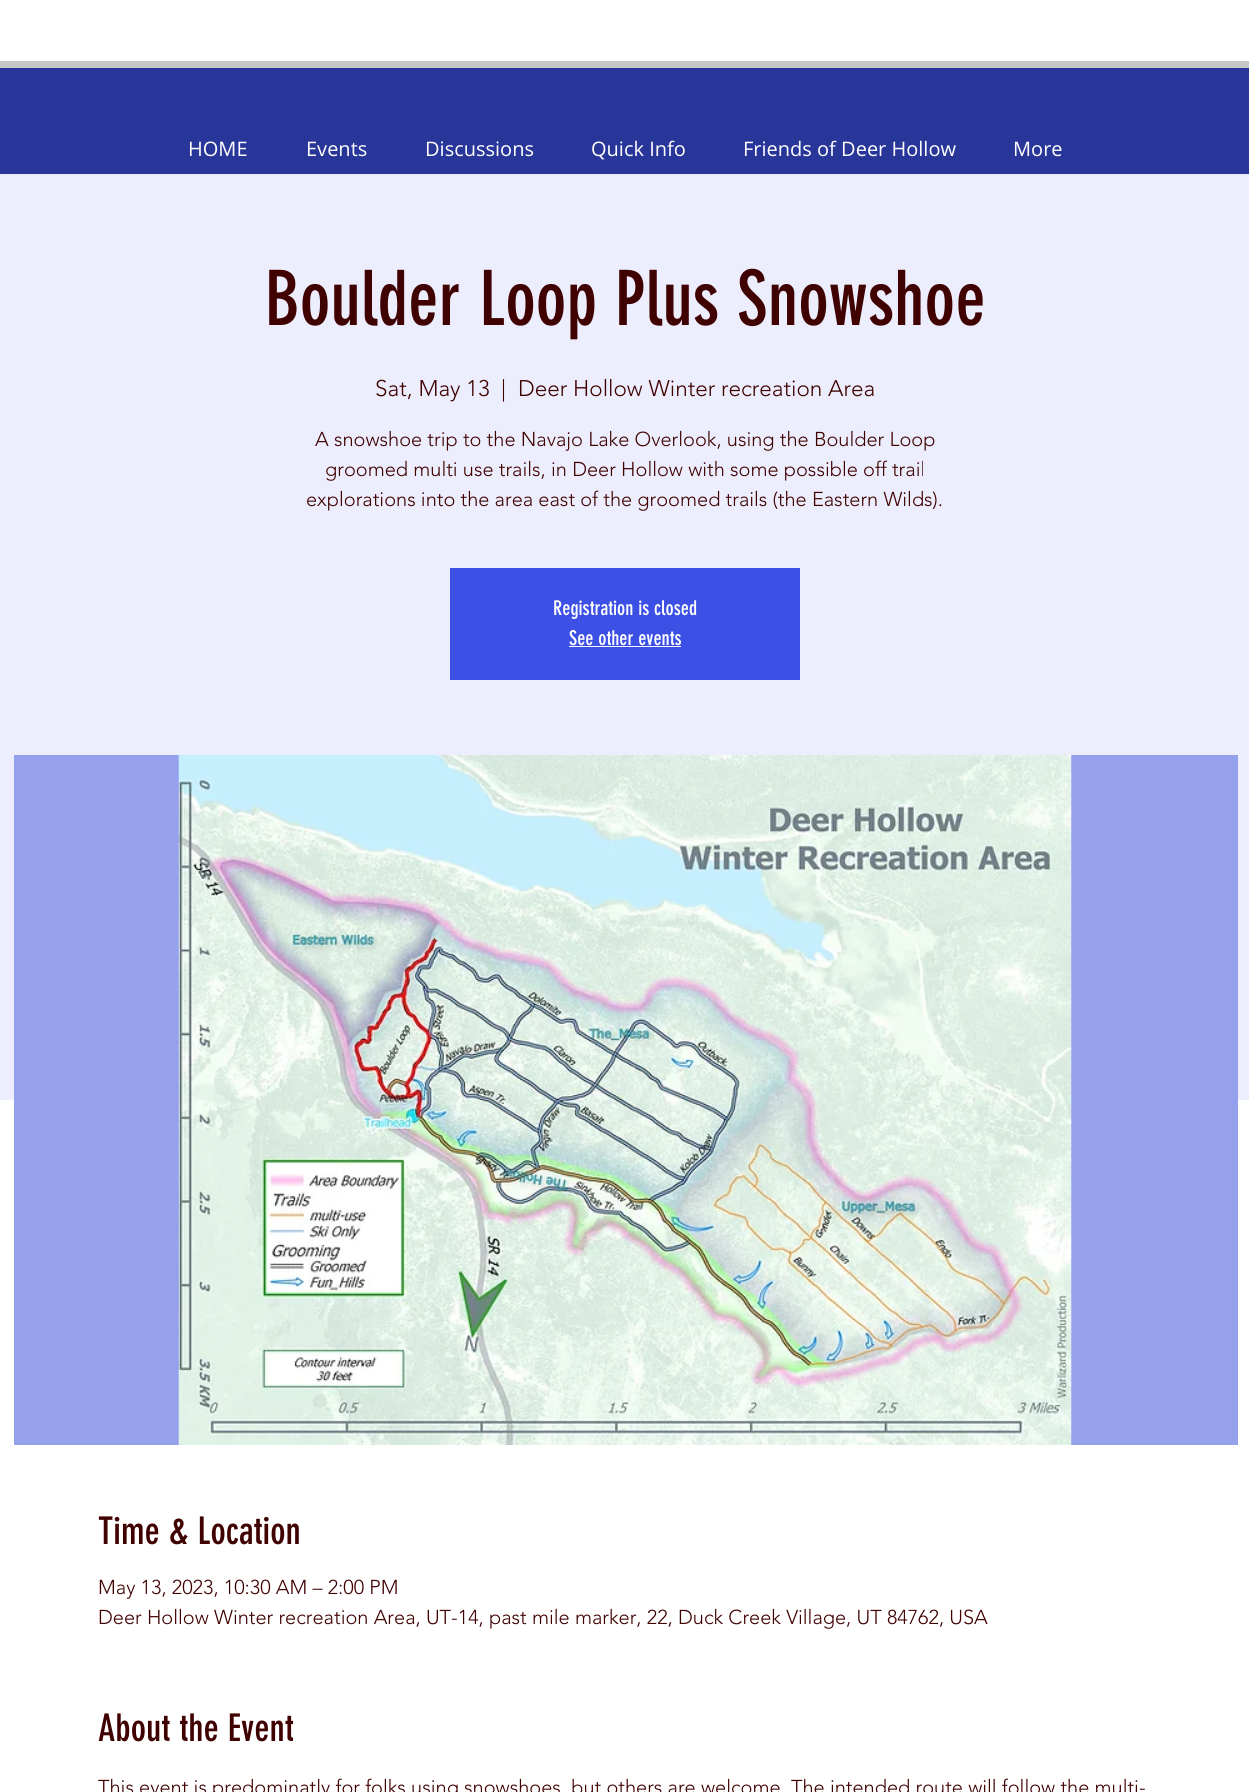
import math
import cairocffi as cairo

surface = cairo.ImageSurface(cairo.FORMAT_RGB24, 1249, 1792)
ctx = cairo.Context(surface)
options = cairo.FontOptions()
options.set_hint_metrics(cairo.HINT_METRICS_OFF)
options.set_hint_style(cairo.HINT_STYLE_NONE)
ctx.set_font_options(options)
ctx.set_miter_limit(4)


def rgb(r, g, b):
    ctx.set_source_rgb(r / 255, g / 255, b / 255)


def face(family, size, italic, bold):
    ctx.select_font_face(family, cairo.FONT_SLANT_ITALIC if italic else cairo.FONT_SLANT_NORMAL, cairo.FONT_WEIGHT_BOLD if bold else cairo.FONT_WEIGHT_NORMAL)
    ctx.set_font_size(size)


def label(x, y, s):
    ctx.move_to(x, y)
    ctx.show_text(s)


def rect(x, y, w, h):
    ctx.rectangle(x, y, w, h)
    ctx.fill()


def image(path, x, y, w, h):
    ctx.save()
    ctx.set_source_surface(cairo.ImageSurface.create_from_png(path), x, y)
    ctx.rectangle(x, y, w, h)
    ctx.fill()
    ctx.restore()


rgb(40, 53, 153)
ctx.paint()
rgb(255, 255, 255)
rect(0, 0, 1249, 61)
rgb(199, 199, 199)
rect(0, 61, 1249, 7)
face('Open Sans', 20, 0, 0)
rgb(255, 255, 255)
label(188, 156, 'HOME')
label(306, 156, 'Events')
label(425, 156, 'Discussions')
label(591, 156, 'Quick Info')
label(743, 156, 'Friends of Deer Hollow')
label(1013, 156, 'More')
rgb(236, 238, 253)
rect(0, 174, 1249, 926)
face('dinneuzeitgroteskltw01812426', 75, 0, 0)
rgb(64, 1, 1)
label(265, 325, 'Boulder Loop Plus Snowshoe')
face('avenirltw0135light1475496 Light', 22.5, 0, 0)
label(375, 396, 'Sat, May 13')
label(501, 396, '|')
label(518, 396, 'Deer Hollow Winter recreation Area')
face('avenirltw0135light1475496 Light', 20, 0, 0)
label(315, 446, 'A snowshoe trip to the Navajo Lake Overlook, using the Boulder Loop')
label(325, 476, 'groomed multi use trails, in Deer Hollow with some possible off trail')
label(306, 506, 'explorations into the area east of the groomed trails (the Eastern Wilds).')
rgb(60, 80, 230)
rect(450, 568, 350, 112)
face('dinneuzeitgroteskltw01812426', 20, 0, 0)
rgb(255, 255, 255)
label(553, 615, 'Registration is closed')
label(569, 645, 'See other events')
rect(569, 646, 112, 1)
rect(0, 1100, 1249, 692)
rgb(150, 161, 238)
rect(14, 755, 1224, 690)
image('image0.png', 178, 755, 894, 690)
face('dinneuzeitgroteskltw01812426', 37.5, 0, 0)
rgb(64, 1, 1)
label(98, 1544, 'Time & Location')
face('avenirltw0135light1475496 Light', 20, 0, 0)
label(98, 1594, 'May 13, 2023, 10:30 AM – 2:00 PM')
label(98, 1624, 'Deer Hollow Winter recreation Area, UT-14, past mile marker, 22, Duck Creek Village, UT 84762, USA')
face('dinneuzeitgroteskltw01812426', 37.5, 0, 0)
label(98, 1741, 'About the Event')
face('avenirltw0135light1475496 Light', 20, 0, 0)
label(98, 1794, 'This event is predominatly for folks using snowshoes, but others are welcome. The intended route will follow the multi-')
surface.write_to_png('render.png')
